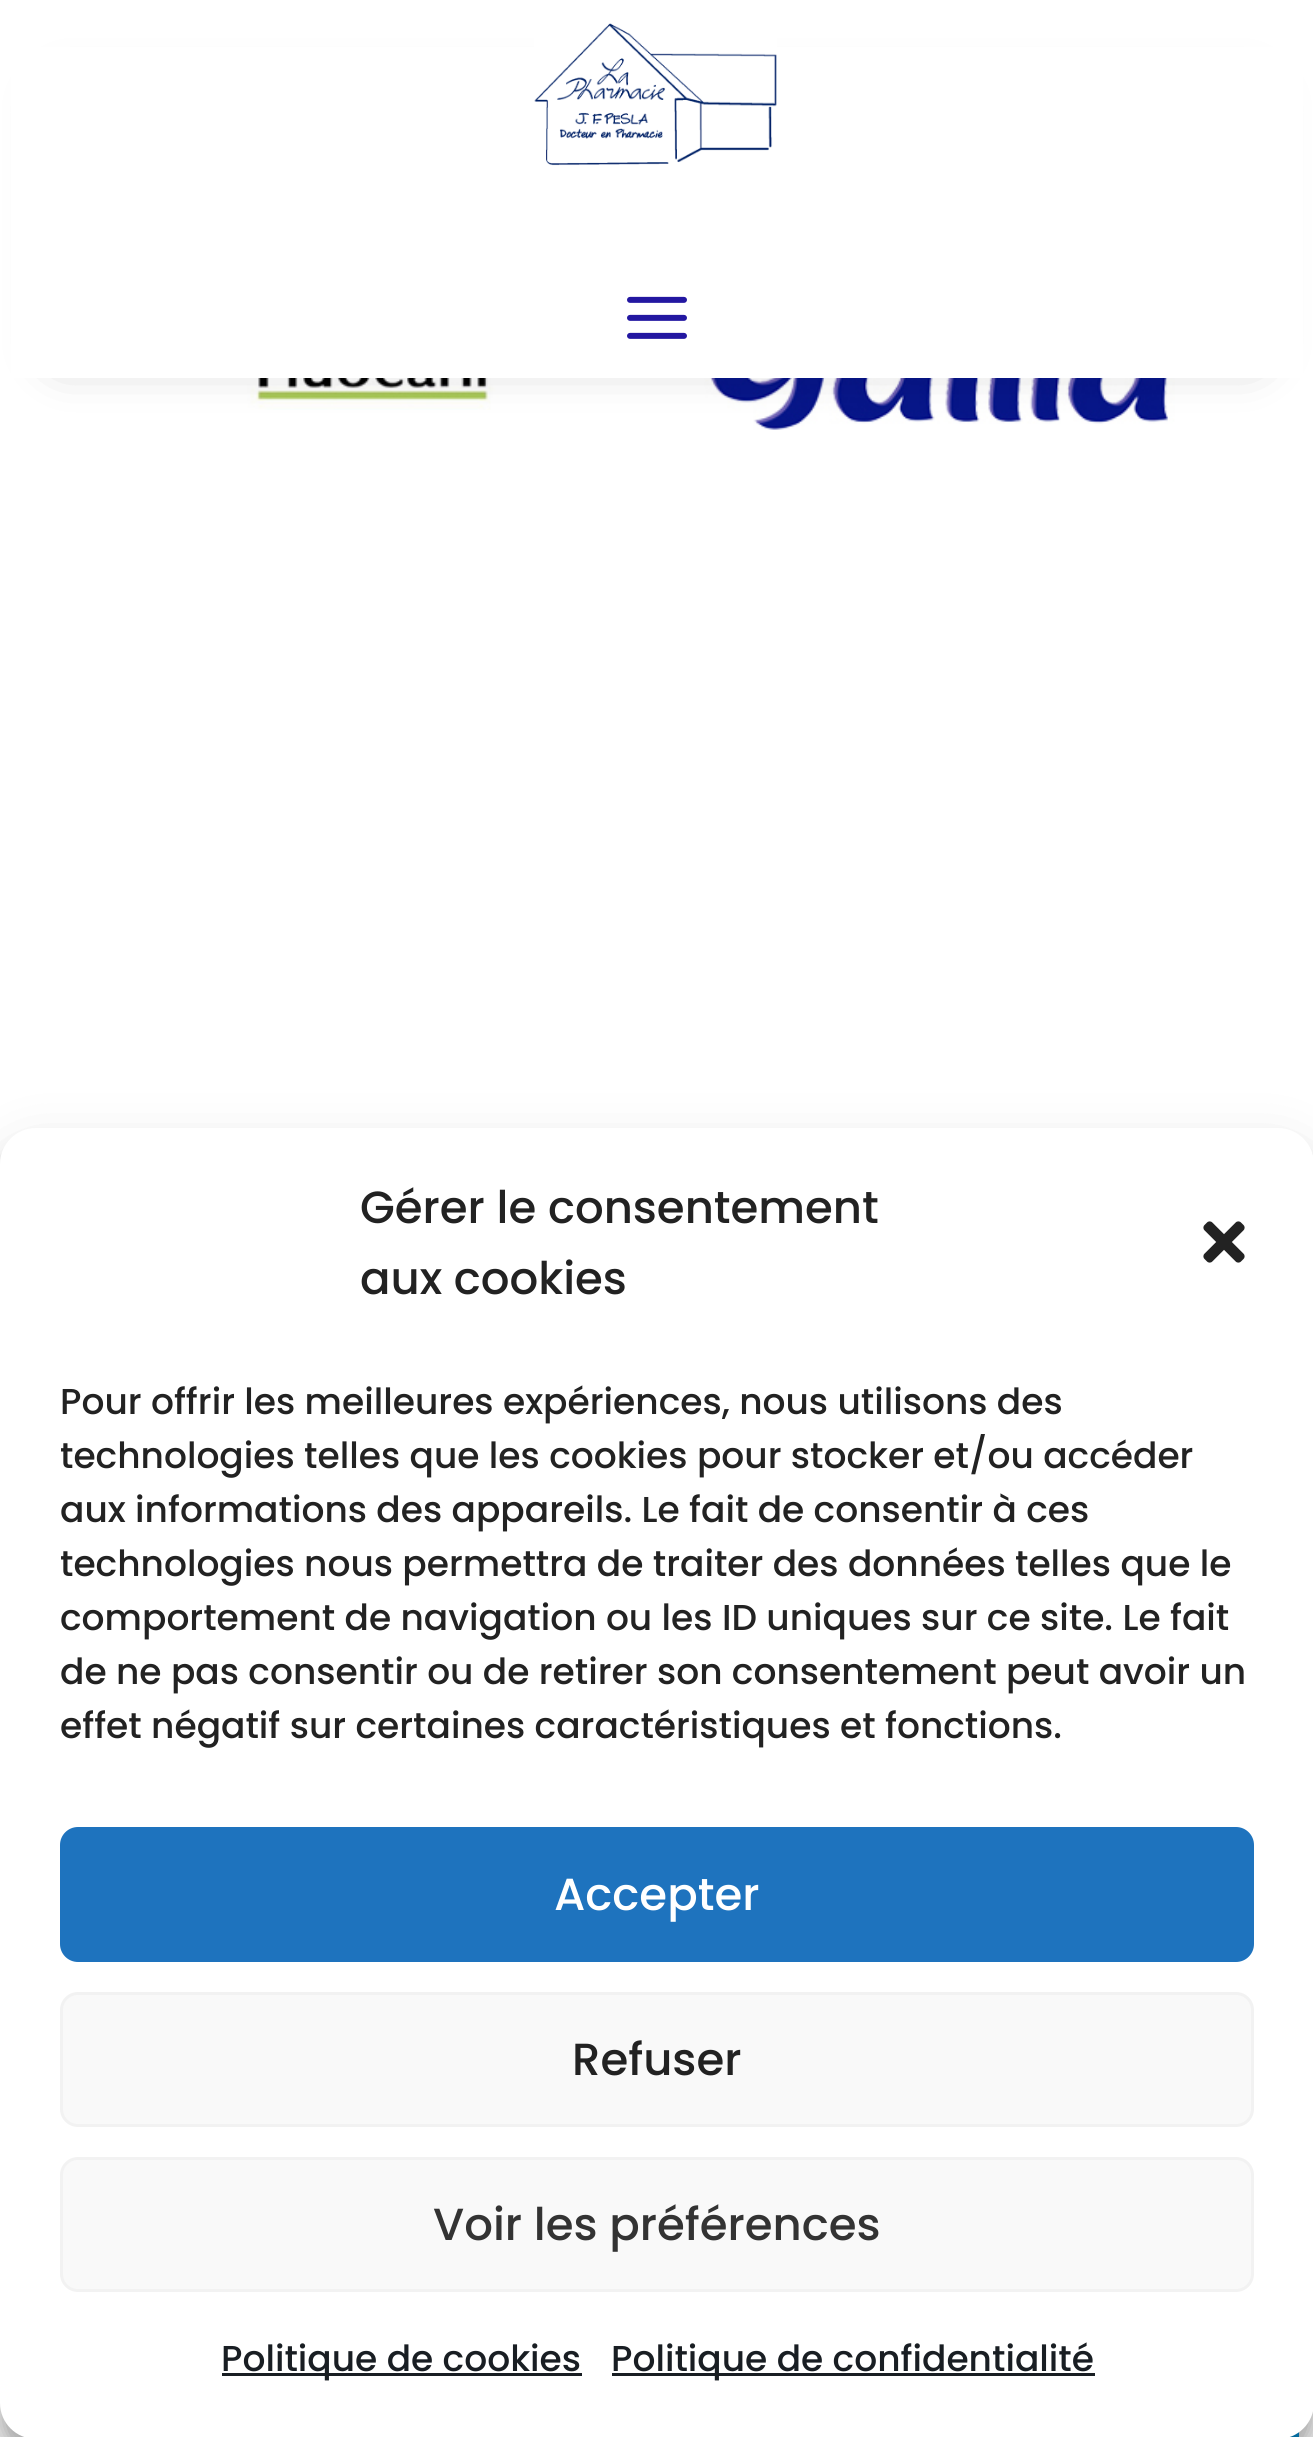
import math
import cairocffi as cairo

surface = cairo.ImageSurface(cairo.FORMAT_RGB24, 1313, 2437)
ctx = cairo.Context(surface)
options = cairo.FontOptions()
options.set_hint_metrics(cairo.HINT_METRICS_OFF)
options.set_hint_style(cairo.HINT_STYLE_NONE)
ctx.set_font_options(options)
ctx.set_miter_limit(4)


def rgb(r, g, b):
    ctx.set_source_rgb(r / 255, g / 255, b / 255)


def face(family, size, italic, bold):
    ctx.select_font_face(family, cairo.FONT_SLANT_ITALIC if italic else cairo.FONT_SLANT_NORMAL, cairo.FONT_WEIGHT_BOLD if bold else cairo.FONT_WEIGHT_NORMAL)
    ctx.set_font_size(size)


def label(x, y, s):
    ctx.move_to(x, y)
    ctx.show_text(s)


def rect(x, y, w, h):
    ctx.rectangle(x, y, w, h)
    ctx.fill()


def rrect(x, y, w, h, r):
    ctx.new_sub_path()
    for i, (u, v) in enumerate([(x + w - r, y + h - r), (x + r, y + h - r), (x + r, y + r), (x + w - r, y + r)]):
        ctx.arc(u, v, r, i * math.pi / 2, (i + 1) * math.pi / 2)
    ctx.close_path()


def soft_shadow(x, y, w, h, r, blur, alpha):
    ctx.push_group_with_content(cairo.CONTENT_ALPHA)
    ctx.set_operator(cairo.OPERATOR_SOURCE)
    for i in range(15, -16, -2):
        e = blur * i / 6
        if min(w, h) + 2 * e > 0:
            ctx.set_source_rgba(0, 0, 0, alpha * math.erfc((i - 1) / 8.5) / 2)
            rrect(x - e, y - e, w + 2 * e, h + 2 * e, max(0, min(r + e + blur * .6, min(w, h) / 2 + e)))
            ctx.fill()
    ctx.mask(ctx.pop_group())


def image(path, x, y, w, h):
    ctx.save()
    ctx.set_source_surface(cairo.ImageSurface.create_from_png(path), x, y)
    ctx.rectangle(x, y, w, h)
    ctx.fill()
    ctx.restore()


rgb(255, 255, 255)
ctx.paint()
image('image2.png', 143, 378, 452, 32)
image('image3.png', 704, 378, 471, 52)
rgb(0, 0, 0)
soft_shadow(60, 96, 1194, 258, 0, 27, 0.3)
rgb(255, 255, 255)
rect(11, 47, 1292, 331)
image('image0.png', 534, 23, 243, 143)
image('image1.png', 627, 296, 60, 43)
rgb(5, 150, 222)
rect(1289, 2432, 10, 5)
rgb(0, 0, 0)
soft_shadow(0, 1146, 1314, 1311, 36, 9, 0.23)
soft_shadow(0, 1158, 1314, 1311, 36, 30, 0.19)
rgb(255, 255, 255)
rrect(0, 1128, 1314, 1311, 36)
ctx.fill()
face('Poppins Medium', 45, 0, 0)
rgb(34, 34, 34)
label(360, 1223, 'Gérer le consentement')
label(360, 1294, 'aux cookies')
image('image4.png', 1203, 1221, 42, 42)
face('Poppins Medium', 36, 0, 0)
label(60, 1414, 'Pour offrir les meilleures expériences, nous utilisons des')
label(60, 1468, 'technologies telles que les cookies pour stocker et/ou accéder')
label(60, 1522, 'aux informations des appareils. Le fait de consentir à ces')
label(60, 1576, 'technologies nous permettra de traiter des données telles que le')
label(60, 1630, 'comportement de navigation ou les ID uniques sur ce site. Le fait')
label(60, 1684, 'de ne pas consentir ou de retirer son consentement peut avoir un')
label(60, 1738, 'effet négatif sur certaines caractéristiques et fonctions.')
rgb(30, 115, 190)
rrect(61.5, 1828.5, 1191, 132, 16.5)
ctx.fill_preserve()
ctx.set_line_width(3)
ctx.stroke()
face('Poppins Medium', 45, 0, 0)
rgb(255, 255, 255)
label(554, 1910, 'Accepter')
rgb(249, 249, 249)
rrect(61.5, 1993.5, 1191, 132, 16.5)
ctx.fill_preserve()
rgb(242, 242, 242)
ctx.stroke()
rgb(34, 34, 34)
label(572, 2075, 'Refuser')
rgb(249, 249, 249)
rrect(61.5, 2158.5, 1191, 132, 16.5)
ctx.fill_preserve()
rgb(242, 242, 242)
ctx.stroke()
rgb(51, 51, 51)
label(433, 2240, 'Voir les préférences')
rgb(25, 30, 35)
rect(222, 2373, 360, 3)
face('Poppins Medium', 36, 0, 0)
label(221, 2371, 'Politique de cookies')
rect(612, 2373, 483, 3)
label(611, 2371, 'Politique de confidentialité')
surface.write_to_png('render.png')
